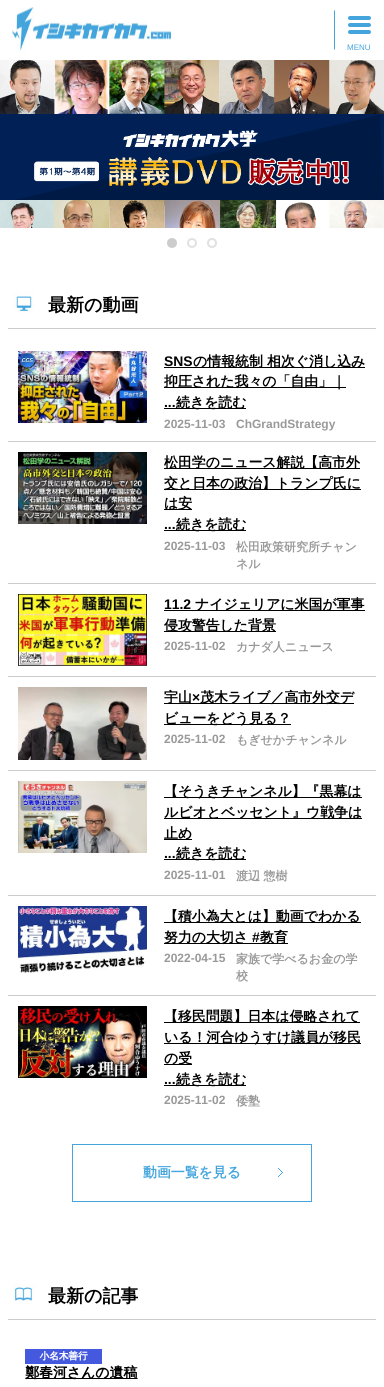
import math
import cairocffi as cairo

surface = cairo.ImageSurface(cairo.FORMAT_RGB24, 384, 1387)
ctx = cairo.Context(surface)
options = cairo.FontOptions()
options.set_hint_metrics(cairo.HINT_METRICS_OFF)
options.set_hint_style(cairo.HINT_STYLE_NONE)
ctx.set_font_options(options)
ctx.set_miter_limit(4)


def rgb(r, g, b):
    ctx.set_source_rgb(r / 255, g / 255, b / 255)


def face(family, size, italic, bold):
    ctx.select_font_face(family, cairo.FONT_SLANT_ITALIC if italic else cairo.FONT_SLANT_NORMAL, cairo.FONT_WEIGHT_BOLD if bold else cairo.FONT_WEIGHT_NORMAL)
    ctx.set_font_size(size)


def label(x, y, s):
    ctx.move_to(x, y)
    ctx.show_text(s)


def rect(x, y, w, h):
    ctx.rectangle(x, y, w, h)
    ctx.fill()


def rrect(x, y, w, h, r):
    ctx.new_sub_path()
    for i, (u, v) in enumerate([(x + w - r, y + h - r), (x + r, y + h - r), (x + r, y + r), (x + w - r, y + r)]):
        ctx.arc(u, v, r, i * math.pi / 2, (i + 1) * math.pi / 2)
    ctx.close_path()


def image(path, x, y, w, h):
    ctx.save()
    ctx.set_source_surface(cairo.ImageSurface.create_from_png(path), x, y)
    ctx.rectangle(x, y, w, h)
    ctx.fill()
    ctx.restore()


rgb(255, 255, 255)
ctx.paint()
image('image0.png', 12, 7, 159, 46)
rgb(68, 165, 221)
ctx.new_path()
ctx.move_to(334, 50)
ctx.line_to(334, 10)
ctx.line_to(335, 11)
ctx.line_to(335, 49)
ctx.close_path()
ctx.fill()
rrect(348, 16, 23, 4, 2)
ctx.fill()
rrect(348, 23, 23, 4, 2)
ctx.fill()
rrect(348, 30, 23, 4, 2)
ctx.fill()
face('Liberation Sans', 8, 0, 0)
label(347, 50, 'MENU')
image('image1.png', 0, 60, 384, 168)
rgb(204, 204, 204)
ctx.arc(172, 243, 4, 0, 2 * math.pi)
ctx.fill_preserve()
ctx.stroke()
ctx.arc(192, 243, 4, 0, 2 * math.pi)
rgb(225, 225, 225)
ctx.stroke()
ctx.arc(212, 243, 4, 0, 2 * math.pi)
ctx.stroke()
rgb(204, 204, 204)
rect(8, 328, 368, 1)
image('image2.png', 13, 292, 22, 22)
face('WenQuanYi Zen Hei', 18, 0, 1)
rgb(0, 0, 0)
label(48, 311, '最新の動画')
image('image3.png', 18, 351, 129, 72)
face('Liberation Sans', 13.9, 0, 1)
label(164, 366, 'SNS')
rect(164, 367, 201, 1)
face('WenQuanYi Zen Hei', 13.9, 0, 1)
label(193, 366, 'の情報統制 相次ぐ消し込み')
rect(164, 387, 182, 1)
label(164, 386, '抑圧された我々の「自由」｜')
face('Liberation Sans', 13.9, 0, 1)
label(164, 407, '...')
rect(164, 408, 82, 1)
face('WenQuanYi Zen Hei', 13.9, 0, 1)
label(176, 407, '続きを読む')
face('Liberation Sans', 12, 0, 1)
rgb(153, 153, 153)
label(164, 428, '2025-11-03')
label(236, 428, 'ChGrandStrategy')
rgb(204, 204, 204)
rect(8, 441, 368, 1)
image('image4.png', 18, 452, 129, 72)
rgb(0, 0, 0)
rect(164, 468, 196, 1)
face('WenQuanYi Zen Hei', 13.9, 0, 1)
label(164, 467, '松田学のニュース解説【高市外')
rect(164, 489, 197, 1)
label(164, 488, '交と日本の政治】トランプ氏に')
rect(164, 509, 28, 1)
label(164, 508, 'は安')
face('Liberation Sans', 13.9, 0, 1)
label(164, 529, '...')
rect(164, 530, 82, 1)
face('WenQuanYi Zen Hei', 13.9, 0, 1)
label(176, 529, '続きを読む')
face('Liberation Sans', 12, 0, 1)
rgb(153, 153, 153)
label(164, 550, '2025-11-03')
face('WenQuanYi Zen Hei', 12, 0, 1)
label(236, 551, '松田政策研究所チャン')
label(236, 568, 'ネル')
rgb(204, 204, 204)
rect(8, 583, 368, 1)
image('image5.png', 18, 594, 129, 72)
face('Liberation Sans', 13.9, 0, 1)
rgb(0, 0, 0)
label(164, 609, '11.2')
rect(164, 610, 201, 1)
face('WenQuanYi Zen Hei', 13.9, 0, 1)
label(195, 609, 'ナイジェリアに米国が軍事')
rect(164, 631, 112, 1)
label(164, 630, '侵攻警告した背景')
face('Liberation Sans', 12, 0, 1)
rgb(153, 153, 153)
label(164, 650, '2025-11-02')
face('WenQuanYi Zen Hei', 12, 0, 1)
label(236, 651, 'カナダ人ニュース')
rgb(204, 204, 204)
rect(8, 676, 368, 1)
image('image6.png', 18, 687, 129, 73)
rgb(0, 0, 0)
rect(164, 703, 190, 1)
face('WenQuanYi Zen Hei', 13.9, 0, 1)
label(164, 702, '宇山')
face('Liberation Sans', 13.9, 0, 1)
label(192, 702, '×')
face('WenQuanYi Zen Hei', 13.9, 0, 1)
label(200, 702, '茂木ライブ／高市外交デ')
rect(164, 724, 127, 1)
label(164, 723, 'ビューをどう見る？')
face('Liberation Sans', 12, 0, 1)
rgb(153, 153, 153)
label(164, 743, '2025-11-02')
face('WenQuanYi Zen Hei', 12, 0, 1)
label(236, 744, 'もぎせかチャンネル')
rgb(204, 204, 204)
rect(8, 770, 368, 1)
image('image7.png', 18, 781, 129, 72)
rgb(0, 0, 0)
rect(164, 797, 198, 1)
face('WenQuanYi Zen Hei', 13.9, 0, 1)
label(164, 796, '【そうきチャンネル】『黒幕は')
rect(164, 818, 198, 1)
label(164, 817, 'ルビオとベッセント』ウ戦争は')
rect(164, 839, 28, 1)
label(164, 838, '止め')
face('Liberation Sans', 13.9, 0, 1)
label(164, 858, '...')
rect(164, 859, 82, 1)
face('WenQuanYi Zen Hei', 13.9, 0, 1)
label(176, 858, '続きを読む')
face('Liberation Sans', 12, 0, 1)
rgb(153, 153, 153)
label(164, 879, '2025-11-01')
face('WenQuanYi Zen Hei', 12, 0, 1)
label(236, 880, '渡辺 惣樹')
rgb(204, 204, 204)
rect(8, 895, 368, 1)
image('image8.png', 18, 906, 129, 72)
rgb(0, 0, 0)
rect(164, 922, 197, 1)
face('WenQuanYi Zen Hei', 13.9, 0, 1)
label(164, 921, '【積小為大とは】動画でわかる')
rect(164, 943, 124, 1)
label(164, 942, '努力の大切さ')
face('Liberation Sans', 13.9, 0, 1)
label(252, 942, '#')
face('WenQuanYi Zen Hei', 13.9, 0, 1)
label(260, 942, '教育')
face('Liberation Sans', 12, 0, 1)
rgb(153, 153, 153)
label(164, 962, '2022-04-15')
face('WenQuanYi Zen Hei', 12, 0, 1)
label(236, 963, '家族で学べるお金の学')
label(236, 980, '校')
rgb(204, 204, 204)
rect(8, 995, 368, 1)
image('image9.png', 18, 1006, 129, 72)
rgb(0, 0, 0)
rect(164, 1022, 196, 1)
face('WenQuanYi Zen Hei', 13.9, 0, 1)
label(164, 1021, '【移民問題】日本は侵略されて')
rect(164, 1043, 197, 1)
label(164, 1042, 'いる！河合ゆうすけ議員が移民')
rect(164, 1064, 28, 1)
label(164, 1063, 'の受')
face('Liberation Sans', 13.9, 0, 1)
label(164, 1084, '...')
rect(164, 1085, 82, 1)
face('WenQuanYi Zen Hei', 13.9, 0, 1)
label(176, 1084, '続きを読む')
face('Liberation Sans', 12, 0, 1)
rgb(153, 153, 153)
label(164, 1104, '2025-11-02')
face('WenQuanYi Zen Hei', 12, 0, 1)
label(236, 1105, '倭塾')
ctx.rectangle(72.5, 1144.5, 239, 57)
rgb(68, 165, 221)
ctx.set_line_width(1)
ctx.stroke()
face('WenQuanYi Zen Hei', 13.9, 0, 1)
label(143, 1177, '動画一覧を見る')
image('image10.png', 278, 1168, 5, 9)
rgb(204, 204, 204)
rect(8, 1319, 368, 1)
image('image11.png', 13, 1283, 22, 18)
face('WenQuanYi Zen Hei', 18, 0, 1)
rgb(0, 0, 0)
label(48, 1302, '最新の記事')
image('image12.png', 25, 1349, 113, 31)
surface.write_to_png('render.png')
